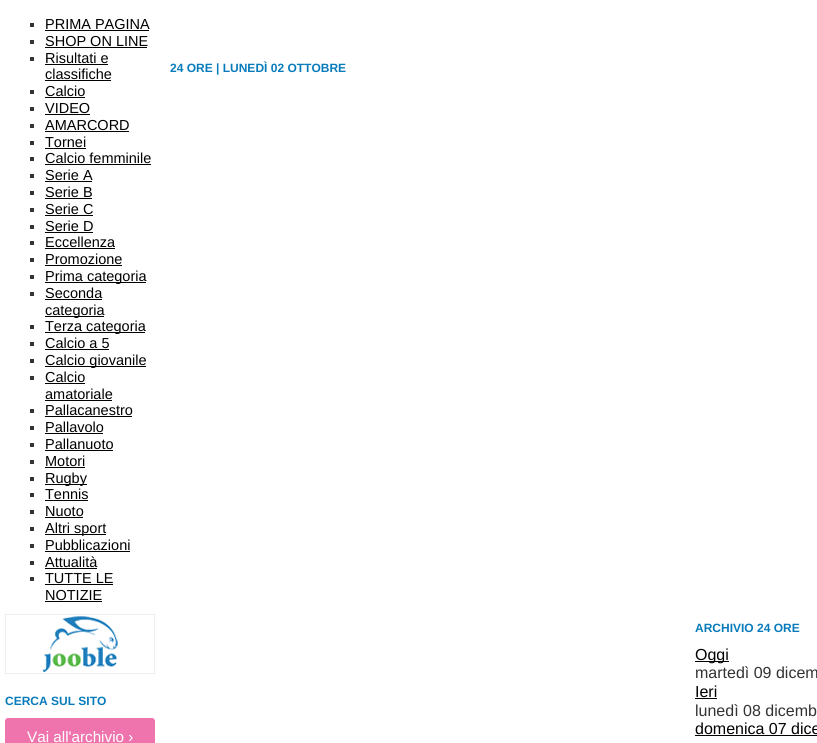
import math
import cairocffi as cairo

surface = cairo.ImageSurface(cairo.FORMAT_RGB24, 817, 743)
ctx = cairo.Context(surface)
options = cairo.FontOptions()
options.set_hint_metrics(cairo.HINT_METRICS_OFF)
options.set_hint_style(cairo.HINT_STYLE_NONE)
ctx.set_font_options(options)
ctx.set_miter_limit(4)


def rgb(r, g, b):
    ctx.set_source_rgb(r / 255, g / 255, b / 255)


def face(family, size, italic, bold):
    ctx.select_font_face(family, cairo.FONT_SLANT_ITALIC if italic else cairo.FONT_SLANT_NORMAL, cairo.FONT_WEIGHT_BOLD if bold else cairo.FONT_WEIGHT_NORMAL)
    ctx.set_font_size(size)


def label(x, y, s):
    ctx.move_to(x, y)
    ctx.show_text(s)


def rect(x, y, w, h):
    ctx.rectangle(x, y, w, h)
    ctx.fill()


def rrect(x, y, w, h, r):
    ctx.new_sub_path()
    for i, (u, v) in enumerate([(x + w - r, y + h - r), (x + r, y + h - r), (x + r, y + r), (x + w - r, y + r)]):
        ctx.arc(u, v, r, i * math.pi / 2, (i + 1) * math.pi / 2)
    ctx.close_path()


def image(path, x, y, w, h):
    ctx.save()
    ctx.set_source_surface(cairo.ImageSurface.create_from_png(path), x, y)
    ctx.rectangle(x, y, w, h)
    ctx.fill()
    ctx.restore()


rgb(255, 255, 255)
ctx.paint()
rgb(51, 51, 51)
rect(30, 23, 4, 4)
face('Liberation Sans', 14.5, 0, 0)
rgb(0, 0, 0)
label(45, 29, 'PRIMA PAGINA')
rect(45, 30, 104, 1)
rgb(51, 51, 51)
rect(30, 40, 4, 4)
rgb(0, 0, 0)
label(45, 46, 'SHOP ON LINE')
rect(45, 47, 102, 1)
rgb(51, 51, 51)
rect(30, 57, 4, 4)
rgb(0, 0, 0)
label(45, 63, 'Risultati e')
rect(45, 64, 63, 1)
label(45, 79, 'classifiche')
rect(45, 80, 66, 1)
rgb(51, 51, 51)
rect(30, 90, 4, 4)
rgb(0, 0, 0)
label(45, 96, 'Calcio')
rect(45, 97, 40, 1)
rgb(51, 51, 51)
rect(30, 107, 4, 4)
rgb(0, 0, 0)
label(45, 113, 'VIDEO')
rect(45, 114, 45, 1)
rgb(51, 51, 51)
rect(30, 124, 4, 4)
rgb(0, 0, 0)
label(45, 130, 'AMARCORD')
rect(45, 131, 84, 1)
rgb(51, 51, 51)
rect(30, 141, 4, 4)
rgb(0, 0, 0)
label(45, 147, 'Tornei')
rect(45, 148, 41, 1)
rgb(51, 51, 51)
rect(30, 157, 4, 4)
rgb(0, 0, 0)
label(45, 163, 'Calcio femminile')
rect(45, 164, 106, 1)
rgb(51, 51, 51)
rect(30, 174, 4, 4)
rgb(0, 0, 0)
label(45, 180, 'Serie A')
rect(45, 181, 47, 1)
rgb(51, 51, 51)
rect(30, 191, 4, 4)
rgb(0, 0, 0)
label(45, 197, 'Serie B')
rect(45, 198, 47, 1)
rgb(51, 51, 51)
rect(30, 208, 4, 4)
rgb(0, 0, 0)
label(45, 214, 'Serie C')
rect(45, 215, 48, 1)
rgb(51, 51, 51)
rect(30, 225, 4, 4)
rgb(0, 0, 0)
label(45, 231, 'Serie D')
rect(45, 232, 48, 1)
rgb(51, 51, 51)
rect(30, 241, 4, 4)
rgb(0, 0, 0)
label(45, 247, 'Eccellenza')
rect(45, 248, 70, 1)
rgb(51, 51, 51)
rect(30, 258, 4, 4)
rgb(0, 0, 0)
label(45, 264, 'Promozione')
rect(45, 265, 77, 1)
rgb(51, 51, 51)
rect(30, 275, 4, 4)
rgb(0, 0, 0)
rect(45, 282, 101, 1)
label(45, 281, 'Prima categoria')
rgb(51, 51, 51)
rect(30, 292, 4, 4)
rgb(0, 0, 0)
label(45, 298, 'Seconda')
rect(45, 299, 57, 1)
rect(45, 316, 59, 1)
label(45, 315, 'categoria')
rgb(51, 51, 51)
rect(30, 325, 4, 4)
rgb(0, 0, 0)
rect(45, 332, 100, 1)
label(45, 331, 'Terza categoria')
rgb(51, 51, 51)
rect(30, 342, 4, 4)
rgb(0, 0, 0)
label(45, 348, 'Calcio a 5')
rect(45, 349, 64, 1)
rgb(51, 51, 51)
rect(30, 359, 4, 4)
rgb(0, 0, 0)
rect(45, 366, 101, 1)
label(45, 365, 'Calcio giovanile')
rgb(51, 51, 51)
rect(30, 376, 4, 4)
rgb(0, 0, 0)
label(45, 382, 'Calcio')
rect(45, 383, 40, 1)
label(45, 399, 'amatoriale')
rect(45, 400, 67, 1)
rgb(51, 51, 51)
rect(30, 409, 4, 4)
rgb(0, 0, 0)
label(45, 415, 'Pallacanestro')
rect(45, 416, 87, 1)
rgb(51, 51, 51)
rect(30, 426, 4, 4)
rgb(0, 0, 0)
label(45, 432, 'Pallavolo')
rect(45, 433, 58, 1)
rgb(51, 51, 51)
rect(30, 443, 4, 4)
rgb(0, 0, 0)
label(45, 449, 'Pallanuoto')
rect(45, 450, 68, 1)
rgb(51, 51, 51)
rect(30, 460, 4, 4)
rgb(0, 0, 0)
label(45, 466, 'Motori')
rect(45, 467, 40, 1)
rgb(51, 51, 51)
rect(30, 477, 4, 4)
rgb(0, 0, 0)
rect(45, 484, 42, 1)
label(45, 483, 'Rugby')
rgb(51, 51, 51)
rect(30, 493, 4, 4)
rgb(0, 0, 0)
label(45, 499, 'Tennis')
rect(45, 500, 43, 1)
rgb(51, 51, 51)
rect(30, 510, 4, 4)
rgb(0, 0, 0)
label(45, 516, 'Nuoto')
rect(45, 517, 38, 1)
rgb(51, 51, 51)
rect(30, 527, 4, 4)
rgb(0, 0, 0)
rect(45, 534, 61, 1)
label(45, 533, 'Altri sport')
rgb(51, 51, 51)
rect(30, 544, 4, 4)
rgb(0, 0, 0)
label(45, 550, 'Pubblicazioni')
rect(45, 551, 85, 1)
rgb(51, 51, 51)
rect(30, 561, 4, 4)
rgb(0, 0, 0)
label(45, 567, 'Attualità')
rect(45, 568, 52, 1)
rgb(51, 51, 51)
rect(30, 577, 4, 4)
rgb(0, 0, 0)
label(45, 583, 'TUTTE LE')
rect(45, 584, 68, 1)
label(45, 600, 'NOTIZIE')
rect(45, 601, 57, 1)
image('image0.png', 5, 614, 150, 60)
face('Liberation Sans', 12, 0, 1)
rgb(8, 123, 187)
label(5, 705, 'CERCA SUL SITO')
rgb(239, 116, 173)
rrect(5, 718, 150, 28, 3)
ctx.fill()
face('Liberation Sans', 15.25, 0, 0)
rgb(255, 255, 255)
label(27, 742, 'Vai all\'archivio ›')
face('Liberation Sans', 12, 0, 1)
rgb(8, 123, 187)
label(170, 72, '24 ORE | LUNEDÌ 02 OTTOBRE')
label(695, 632, 'ARCHIVIO 24 ORE')
rgb(0, 0, 0)
rect(695, 661, 34, 1)
face('Liberation Sans', 16, 0, 0)
label(695, 660, 'Oggi')
rgb(51, 51, 51)
label(695, 678, 'martedì 09 dicem')
rgb(0, 0, 0)
label(695, 697, 'Ieri')
rect(695, 698, 22, 1)
rgb(51, 51, 51)
label(695, 716, 'lunedì 08 dicemb')
rgb(0, 0, 0)
label(695, 734, 'domenica 07 dice')
rect(695, 735, 122, 1)
surface.write_to_png('render.png')
